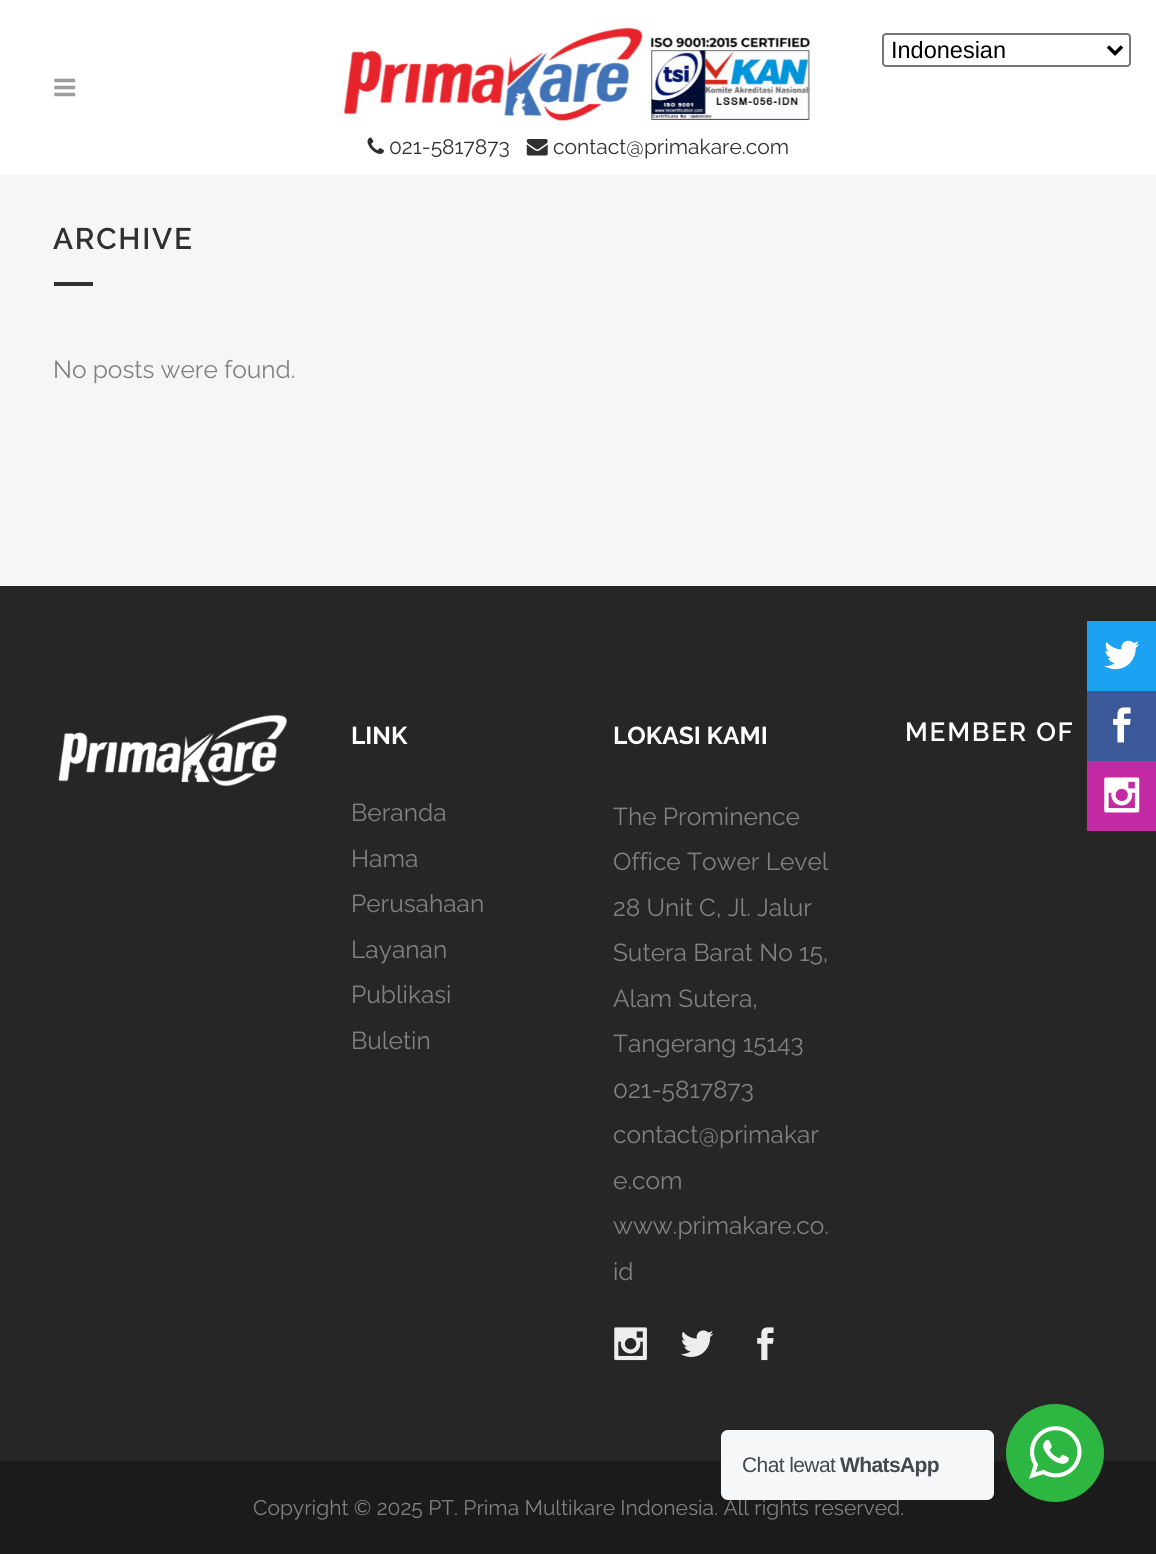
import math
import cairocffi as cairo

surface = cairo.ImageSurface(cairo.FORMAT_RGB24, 1156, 1554)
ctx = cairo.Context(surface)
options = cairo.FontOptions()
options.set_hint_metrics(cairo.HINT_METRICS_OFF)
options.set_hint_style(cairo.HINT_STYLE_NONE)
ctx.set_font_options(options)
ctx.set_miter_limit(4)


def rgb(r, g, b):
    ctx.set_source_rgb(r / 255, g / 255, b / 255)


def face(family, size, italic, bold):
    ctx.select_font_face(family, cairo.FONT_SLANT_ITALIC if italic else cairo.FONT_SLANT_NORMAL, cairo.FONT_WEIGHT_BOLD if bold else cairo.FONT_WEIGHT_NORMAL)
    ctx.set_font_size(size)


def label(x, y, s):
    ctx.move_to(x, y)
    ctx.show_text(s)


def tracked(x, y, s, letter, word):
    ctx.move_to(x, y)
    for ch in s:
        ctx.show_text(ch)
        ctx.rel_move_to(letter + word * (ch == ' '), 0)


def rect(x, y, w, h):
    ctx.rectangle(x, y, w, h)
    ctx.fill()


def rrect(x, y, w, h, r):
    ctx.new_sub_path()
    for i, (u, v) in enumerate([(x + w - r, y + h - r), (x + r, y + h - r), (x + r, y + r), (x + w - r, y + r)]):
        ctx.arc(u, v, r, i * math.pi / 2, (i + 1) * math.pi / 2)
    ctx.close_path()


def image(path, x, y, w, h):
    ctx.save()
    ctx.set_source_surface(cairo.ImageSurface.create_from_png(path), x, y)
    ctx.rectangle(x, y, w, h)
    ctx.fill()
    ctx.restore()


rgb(246, 246, 246)
ctx.paint()
rgb(255, 255, 255)
rect(0, 0, 1156, 175)
rrect(883, 34, 247, 32, 3)
rgb(118, 118, 118)
ctx.stroke()
ctx.new_path()
ctx.move_to(1108, 46.5)
ctx.line_to(1115, 53.5)
ctx.line_to(1122, 46.5)
rgb(0, 0, 0)
ctx.set_line_width(3.5)
ctx.stroke()
face('Liberation Sans', 23.5, 0, 0)
label(891, 58, 'Indonesian')
image('image0.png', 54, 78, 22, 19)
image('image1.png', 343, 27, 468, 94)
image('image2.png', 367, 137, 17, 17)
face('Raleway', 21, 0, 0)
rgb(48, 48, 48)
label(389, 154, '021-5817873')
image('image3.png', 526, 139, 22, 17)
label(553, 154, 'contact@primakare.com')
face('Raleway SemiBold', 29.75, 0, 0)
tracked(53, 249, 'ARCHIVE', 1.75, 0)
rect(54, 282, 39, 4)
face('Raleway', 24.5, 0, 0)
rgb(129, 129, 129)
label(53, 378, 'No posts were found.')
rgb(38, 38, 38)
rect(0, 586, 1156, 875)
image('image4.png', 58, 715, 230, 71)
face('Raleway', 24.5, 0, 1)
rgb(255, 255, 255)
label(351, 744, 'LINK')
face('Raleway', 24.5, 0, 0)
rgb(129, 129, 129)
label(351, 821, 'Beranda')
label(351, 867, 'Hama')
label(351, 912, 'Perusahaan')
label(351, 958, 'Layanan')
label(351, 1003, 'Publikasi')
label(351, 1049, 'Buletin')
face('Raleway', 24.5, 0, 1)
rgb(255, 255, 255)
label(613, 744, 'LOKASI KAMI')
face('Raleway', 24.5, 0, 0)
rgb(129, 129, 129)
label(613, 825, 'The Prominence')
label(613, 870, 'Office Tower Level')
label(613, 916, '28 Unit C, Jl. Jalur')
label(613, 961, 'Sutera Barat No 15,')
label(613, 1007, 'Alam Sutera,')
label(613, 1052, 'Tangerang 15143')
label(613, 1098, '021-5817873')
label(613, 1143, 'contact@primakar')
label(613, 1189, 'e.com')
label(613, 1234, 'www.primakare.co.')
label(613, 1280, 'id')
image('image5.png', 614, 1327, 33, 34)
image('image6.png', 681, 1330, 33, 27)
image('image7.png', 757, 1327, 17, 34)
face('Raleway SemiBold', 26.25, 0, 0)
rgb(255, 255, 255)
tracked(905, 741, 'MEMBER OF', 1.75, 0)
rgb(27, 27, 27)
rect(0, 1461, 1156, 93)
face('Raleway', 21, 0, 0)
rgb(129, 129, 129)
label(253, 1515, 'Copyright © 2025 PT. Prima Multikare Indonesia. All rights reserved.')
rgb(29, 161, 242)
rect(1087, 621, 69, 70)
image('image8.png', 1104, 640, 36, 30)
rgb(59, 89, 152)
rect(1087, 691, 69, 70)
image('image9.png', 1113, 707, 18, 36)
rgb(195, 42, 163)
rect(1087, 761, 69, 70)
image('image10.png', 1104, 777, 36, 36)
rgb(245, 247, 249)
rrect(721, 1430, 273, 70, 7)
ctx.fill()
face('Liberation Sans', 21, 0, 0)
rgb(67, 71, 78)
tracked(742, 1472, 'Chat lewat', -0.6, 0)
face('Liberation Sans', 21, 0, 1)
tracked(840, 1472, 'WhatsApp', -0.6, 0)
rgb(45, 183, 66)
ctx.new_path()
ctx.arc(1055, 1453, 49, 0, 2 * math.pi)
ctx.fill()
image('image11.png', 1029, 1426, 53, 53)
surface.write_to_png('render.png')
